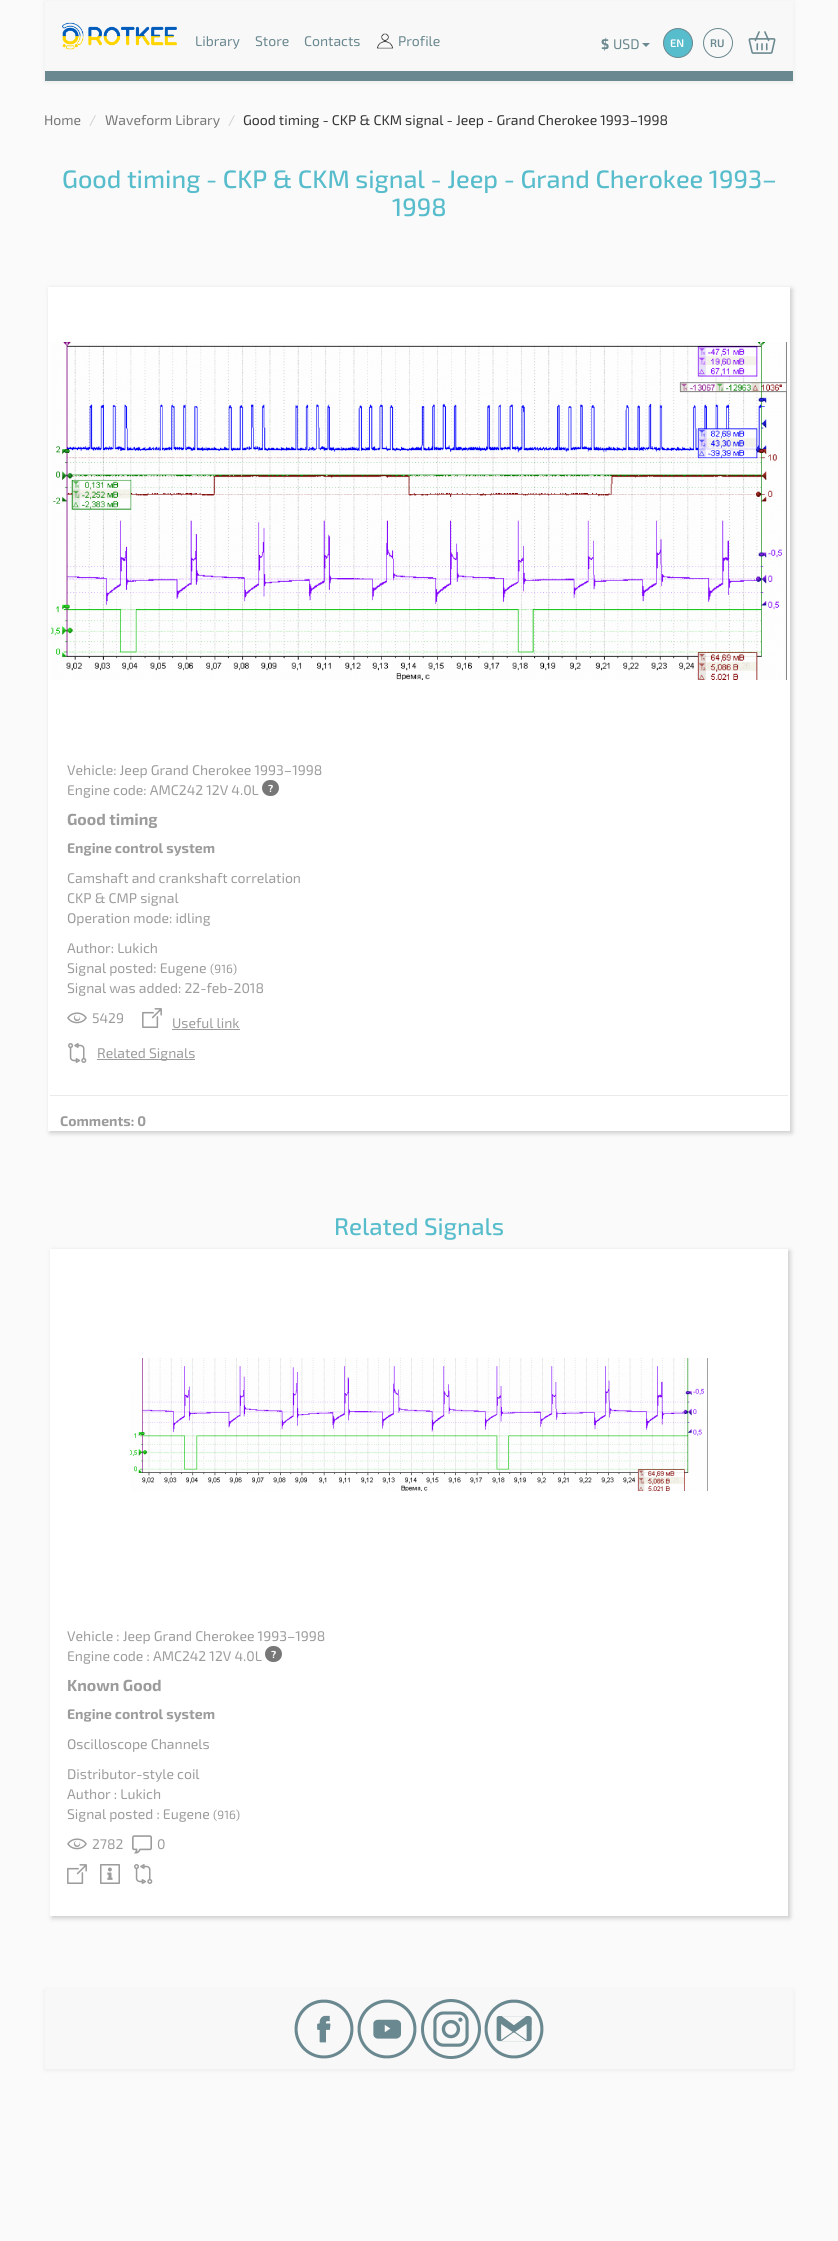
import math
import cairocffi as cairo

surface = cairo.ImageSurface(cairo.FORMAT_RGB24, 838, 2241)
ctx = cairo.Context(surface)
options = cairo.FontOptions()
options.set_hint_metrics(cairo.HINT_METRICS_OFF)
options.set_hint_style(cairo.HINT_STYLE_NONE)
ctx.set_font_options(options)
ctx.set_miter_limit(4)


def rgb(r, g, b):
    ctx.set_source_rgb(r / 255, g / 255, b / 255)


def face(family, size, italic, bold):
    ctx.select_font_face(family, cairo.FONT_SLANT_ITALIC if italic else cairo.FONT_SLANT_NORMAL, cairo.FONT_WEIGHT_BOLD if bold else cairo.FONT_WEIGHT_NORMAL)
    ctx.set_font_size(size)


def label(x, y, s):
    ctx.move_to(x, y)
    ctx.show_text(s)


def rect(x, y, w, h):
    ctx.rectangle(x, y, w, h)
    ctx.fill()


def rrect(x, y, w, h, r):
    ctx.new_sub_path()
    for i, (u, v) in enumerate([(x + w - r, y + h - r), (x + r, y + h - r), (x + r, y + r), (x + w - r, y + r)]):
        ctx.arc(u, v, r, i * math.pi / 2, (i + 1) * math.pi / 2)
    ctx.close_path()


def soft_shadow(x, y, w, h, r, blur, alpha):
    ctx.push_group_with_content(cairo.CONTENT_ALPHA)
    ctx.set_operator(cairo.OPERATOR_SOURCE)
    for i in range(15, -16, -2):
        e = blur * i / 6
        if min(w, h) + 2 * e > 0:
            ctx.set_source_rgba(0, 0, 0, alpha * math.erfc((i - 1) / 8.5) / 2)
            rrect(x - e, y - e, w + 2 * e, h + 2 * e, max(0, min(r + e + blur * .6, min(w, h) / 2 + e)))
            ctx.fill()
    ctx.mask(ctx.pop_group())


def image(path, x, y, w, h):
    ctx.save()
    ctx.set_source_surface(cairo.ImageSurface.create_from_png(path), x, y)
    ctx.rectangle(x, y, w, h)
    ctx.fill()
    ctx.restore()


rgb(250, 250, 250)
ctx.paint()
rgb(0, 0, 0)
soft_shadow(45, 2, 748, 80, 0, 2.5, 0.07)
rgb(248, 248, 248)
rect(45, 1, 748, 70)
rgb(106, 136, 143)
rect(45, 71, 748, 10)
image('image0.png', 62, 22, 115, 28)
face('Exo 2', 14, 0, 0)
label(195, 46, 'Library')
label(255, 46, 'Store')
label(304, 46, 'Contacts')
image('image1.png', 377, 33, 16, 16)
label(398, 46, 'Profile')
face('Exo 2', 14, 0, 1)
label(601, 49, '$')
face('Exo 2', 14, 0, 0)
label(613, 49, 'USD')
ctx.new_path()
ctx.move_to(642, 43)
ctx.line_to(650, 43)
ctx.line_to(646, 47)
ctx.close_path()
ctx.fill()
rgb(87, 188, 203)
ctx.arc(678, 43, 14.5, 0, 2 * math.pi)
ctx.fill_preserve()
rgb(106, 136, 143)
ctx.set_line_width(1)
ctx.stroke()
face('Exo 2 SemiBold', 11, 0, 0)
rgb(255, 255, 255)
label(670, 47, 'EN')
ctx.new_path()
ctx.arc(718, 43, 14.5, 0, 2 * math.pi)
rgb(106, 136, 143)
ctx.stroke()
label(710, 47, 'RU')
image('image2.png', 748, 31, 28, 23)
face('Exo 2', 14, 0, 0)
rgb(119, 119, 119)
label(44, 125, 'Home')
rgb(204, 204, 204)
label(89, 125, '/')
rgb(119, 119, 119)
label(105, 125, 'Waveform Library')
rgb(204, 204, 204)
label(228, 125, '/')
rgb(51, 51, 51)
label(243, 125, 'Good timing - CKP & CKM signal - Jeep - Grand Cherokee 1993–1998')
face('Exo 2 Medium', 25.2, 0, 0)
rgb(87, 188, 203)
label(62, 188, 'Good timing - CKP & CKM signal - Jeep - Grand Cherokee 1993–')
label(392, 216, '1998')
rgb(0, 0, 0)
soft_shadow(50, 289, 742, 844, 0, 2.5, 0.2)
rgb(255, 255, 255)
rect(48, 287, 742, 844)
image('image3.png', 51, 342, 736, 338)
face('Exo 2', 14, 0, 0)
rgb(156, 156, 156)
label(67, 775, 'Vehicle: Jeep Grand Cherokee 1993–1998')
label(67, 795, 'Engine code: AMC242 12V 4.0L')
rgb(119, 119, 119)
rrect(262, 780, 17, 16, 8)
ctx.fill()
face('Exo 2', 10, 0, 1)
rgb(255, 255, 255)
label(268, 792, '?')
face('Exo 2', 16, 0, 1)
rgb(156, 156, 156)
label(67, 825, 'Good timing')
face('Exo 2', 14, 0, 1)
label(67, 853, 'Engine control system')
face('Exo 2', 14, 0, 0)
label(67, 883, 'Camshaft and crankshaft correlation')
label(67, 903, 'CKP & CMP signal')
label(67, 923, 'Operation mode: idling')
label(67, 953, 'Author: Lukich')
label(67, 973, 'Signal posted: Eugene')
face('Exo 2', 12, 0, 0)
label(210, 973, '(916)')
face('Exo 2', 14, 0, 0)
label(67, 993, 'Signal was added: 22-feb-2018')
image('image4.png', 67, 1012, 20, 12)
label(92, 1023, '5429')
image('image5.png', 142, 1008, 20, 20)
label(172, 1028, 'Useful link')
rect(172, 1029, 68, 1)
image('image6.png', 68, 1043, 19, 20)
rect(97, 1059, 98, 1)
label(97, 1058, 'Related Signals')
rgb(234, 234, 234)
rect(50, 1095, 738, 1)
face('Exo 2', 14, 0, 1)
rgb(156, 156, 156)
label(60, 1126, 'Comments: 0')
face('Exo 2 Medium', 24, 0, 0)
rgb(87, 188, 203)
label(334, 1235, 'Related Signals')
rgb(0, 0, 0)
soft_shadow(52, 1251, 738, 667, 0, 2.5, 0.2)
rgb(255, 255, 255)
rect(50, 1249, 738, 667)
image('image7.png', 130, 1358, 578, 133)
face('Exo 2', 14, 0, 0)
rgb(156, 156, 156)
label(67, 1641, 'Vehicle : Jeep Grand Cherokee 1993–1998')
label(67, 1661, 'Engine code : AMC242 12V 4.0L')
rgb(119, 119, 119)
rrect(265, 1646, 17, 16, 8)
ctx.fill()
face('Exo 2', 10, 0, 1)
rgb(255, 255, 255)
label(271, 1658, '?')
face('Exo 2', 16, 0, 1)
rgb(156, 156, 156)
label(67, 1691, 'Known Good')
face('Exo 2', 14, 0, 1)
label(67, 1719, 'Engine control system')
face('Exo 2', 14, 0, 0)
label(67, 1749, 'Oscilloscope Channels')
label(67, 1779, 'Distributor-style coil')
label(67, 1799, 'Author : Lukich')
label(67, 1819, 'Signal posted : Eugene')
face('Exo 2', 12, 0, 0)
label(213, 1819, '(916)')
image('image4.png', 67, 1838, 20, 12)
face('Exo 2', 14, 0, 0)
label(92, 1849, '2782')
image('image8.png', 132, 1835, 20, 19)
label(157, 1849, '0')
image('image5.png', 67, 1864, 20, 20)
image('image9.png', 100, 1864, 20, 20)
image('image6.png', 134, 1864, 19, 20)
rgb(0, 0, 0)
soft_shadow(45, 1990, 748, 80, 0, 2.5, 0.07)
rgb(248, 248, 248)
rect(45, 1989, 748, 80)
image('image10.png', 294, 1999, 60, 60)
image('image11.png', 357, 1999, 60, 60)
image('image12.png', 421, 1999, 60, 60)
image('image13.png', 484, 1999, 60, 60)
surface.write_to_png('render.png')
